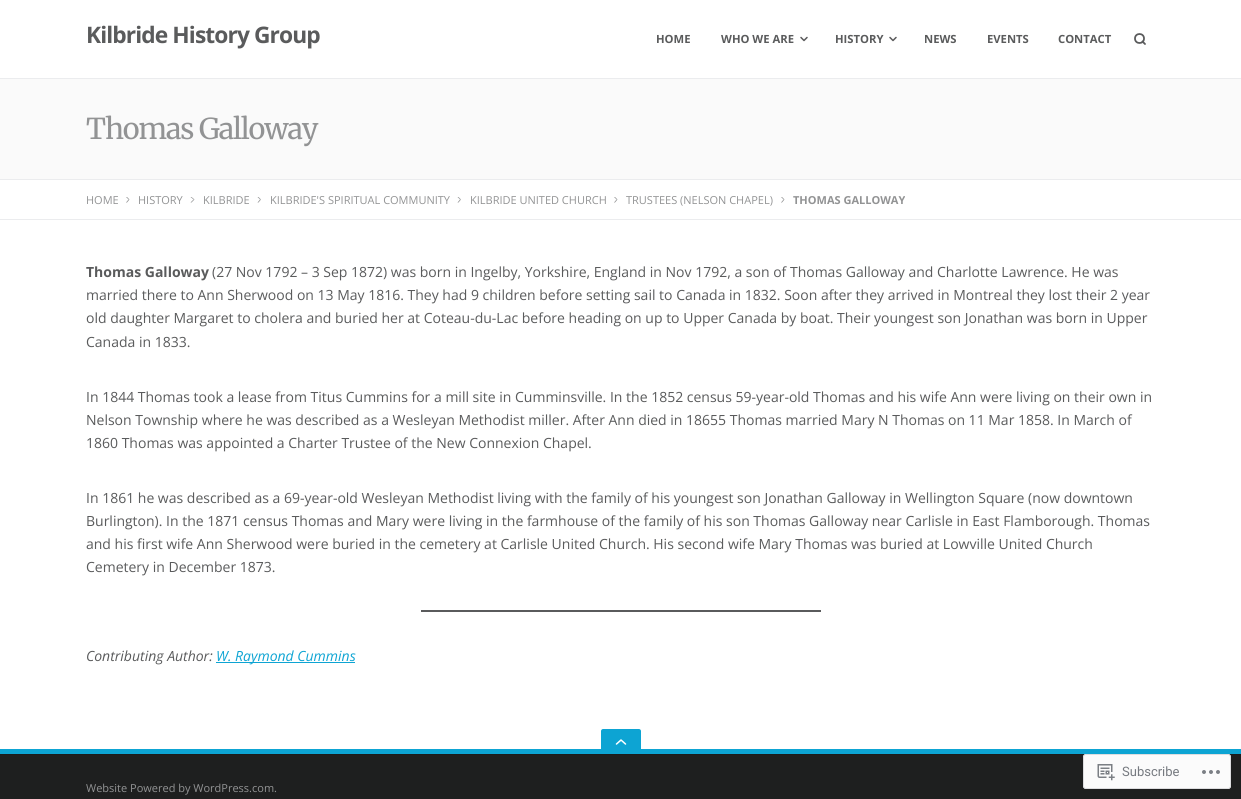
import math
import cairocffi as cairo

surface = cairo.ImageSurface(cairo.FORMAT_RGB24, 1241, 799)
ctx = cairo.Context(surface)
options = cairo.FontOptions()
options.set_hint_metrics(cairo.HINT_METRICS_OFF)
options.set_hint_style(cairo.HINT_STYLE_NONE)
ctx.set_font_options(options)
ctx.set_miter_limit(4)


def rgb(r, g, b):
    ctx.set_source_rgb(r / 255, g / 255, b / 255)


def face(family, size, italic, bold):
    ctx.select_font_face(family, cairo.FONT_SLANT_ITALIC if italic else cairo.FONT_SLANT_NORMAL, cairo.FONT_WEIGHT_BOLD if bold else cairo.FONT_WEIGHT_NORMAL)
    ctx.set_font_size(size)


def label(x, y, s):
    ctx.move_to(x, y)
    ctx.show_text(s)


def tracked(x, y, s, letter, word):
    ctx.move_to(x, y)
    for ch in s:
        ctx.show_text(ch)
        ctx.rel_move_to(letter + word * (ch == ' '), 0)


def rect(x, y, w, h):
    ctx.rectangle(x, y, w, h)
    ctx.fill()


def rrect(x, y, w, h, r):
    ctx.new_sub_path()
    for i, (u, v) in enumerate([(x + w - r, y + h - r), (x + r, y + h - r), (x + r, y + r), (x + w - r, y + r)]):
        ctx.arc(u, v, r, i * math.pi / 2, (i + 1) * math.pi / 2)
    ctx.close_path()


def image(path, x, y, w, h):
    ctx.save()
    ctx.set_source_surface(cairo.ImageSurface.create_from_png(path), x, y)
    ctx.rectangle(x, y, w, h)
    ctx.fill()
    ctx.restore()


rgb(255, 255, 255)
ctx.paint()
rgb(235, 236, 238)
rect(0, 78, 1241, 1)
face('Open Sans', 22.75, 0, 1)
rgb(90, 91, 92)
tracked(86, 43, 'Kilbride History Group', -0.9, 0)
face('Open Sans', 11.25, 0, 1)
label(656, 43, 'HOME')
label(721, 43, 'WHO WE ARE')
ctx.new_path()
ctx.move_to(801, 37.5)
ctx.line_to(804, 40.5)
ctx.line_to(807, 37.5)
ctx.set_line_width(1.5)
ctx.set_line_cap(cairo.LINE_CAP_ROUND)
ctx.set_line_join(cairo.LINE_JOIN_ROUND)
ctx.stroke()
label(835, 43, 'HISTORY')
ctx.new_path()
ctx.move_to(890, 37.5)
ctx.line_to(893, 40.5)
ctx.line_to(896, 37.5)
ctx.stroke()
label(924, 43, 'NEWS')
label(987, 43, 'EVENTS')
label(1058, 43, 'CONTACT')
ctx.new_path()
ctx.arc(1139.5, 38.5, 4.5, 0, 2 * math.pi)
ctx.set_line_width(1.8)
ctx.set_line_cap(cairo.LINE_CAP_BUTT)
ctx.set_line_join(cairo.LINE_JOIN_MITER)
ctx.stroke()
ctx.new_path()
ctx.move_to(1145, 44)
ctx.line_to(1142.5, 41.5)
ctx.set_line_cap(cairo.LINE_CAP_ROUND)
ctx.set_line_join(cairo.LINE_JOIN_ROUND)
ctx.stroke()
rgb(250, 250, 250)
rect(0, 79, 1241, 100)
rgb(235, 236, 238)
rect(0, 179, 1241, 1)
face('Merriweather Light', 28.75, 0, 0)
rgb(146, 147, 148)
tracked(86, 139, 'Thomas Galloway', -1.1, 0)
rgb(235, 236, 238)
rect(0, 219, 1241, 1)
face('Open Sans', 11, 0, 0)
rgb(146, 147, 148)
label(86, 204, 'HOME')
ctx.new_path()
ctx.move_to(126, 197)
ctx.line_to(127, 197)
ctx.line_to(129.5, 199.5)
ctx.line_to(128.5, 199.5)
ctx.close_path()
ctx.fill()
ctx.new_path()
ctx.move_to(128.5, 199.5)
ctx.line_to(129.5, 199.5)
ctx.line_to(127, 202.5)
ctx.line_to(126, 202.5)
ctx.close_path()
ctx.fill()
label(138, 204, 'HISTORY')
ctx.new_path()
ctx.move_to(190.5, 197)
ctx.line_to(191.5, 197)
ctx.line_to(194.5, 199.5)
ctx.line_to(193.5, 199.5)
ctx.close_path()
ctx.fill()
ctx.new_path()
ctx.move_to(193.5, 199.5)
ctx.line_to(194.5, 199.5)
ctx.line_to(191.5, 202.5)
ctx.line_to(190.5, 202.5)
ctx.close_path()
ctx.fill()
label(203, 204, 'KILBRIDE')
ctx.new_path()
ctx.move_to(257.5, 197)
ctx.line_to(258.5, 197)
ctx.line_to(261, 199.5)
ctx.line_to(260, 199.5)
ctx.close_path()
ctx.fill()
ctx.new_path()
ctx.move_to(260, 199.5)
ctx.line_to(261, 199.5)
ctx.line_to(258.5, 202.5)
ctx.line_to(257.5, 202.5)
ctx.close_path()
ctx.fill()
label(270, 204, 'KILBRIDE\'S SPIRITUAL COMMUNITY')
ctx.new_path()
ctx.move_to(457.5, 197)
ctx.line_to(458.5, 197)
ctx.line_to(461, 199.5)
ctx.line_to(460, 199.5)
ctx.close_path()
ctx.fill()
ctx.new_path()
ctx.move_to(460, 199.5)
ctx.line_to(461, 199.5)
ctx.line_to(458.5, 202.5)
ctx.line_to(457.5, 202.5)
ctx.close_path()
ctx.fill()
label(470, 204, 'KILBRIDE UNITED CHURCH')
ctx.new_path()
ctx.move_to(614, 197)
ctx.line_to(615, 197)
ctx.line_to(617.5, 199.5)
ctx.line_to(616.5, 199.5)
ctx.close_path()
ctx.fill()
ctx.new_path()
ctx.move_to(616.5, 199.5)
ctx.line_to(617.5, 199.5)
ctx.line_to(615, 202.5)
ctx.line_to(614, 202.5)
ctx.close_path()
ctx.fill()
label(626, 204, 'TRUSTEES (NELSON CHAPEL)')
ctx.new_path()
ctx.move_to(781, 197)
ctx.line_to(782, 197)
ctx.line_to(784.5, 199.5)
ctx.line_to(783.5, 199.5)
ctx.close_path()
ctx.fill()
ctx.new_path()
ctx.move_to(783.5, 199.5)
ctx.line_to(784.5, 199.5)
ctx.line_to(782, 202.5)
ctx.line_to(781, 202.5)
ctx.close_path()
ctx.fill()
face('Open Sans', 11, 0, 1)
label(793, 204, 'THOMAS GALLOWAY')
face('Open Sans', 14, 0, 1)
rgb(90, 91, 92)
label(86, 277, 'Thomas Galloway')
face('Open Sans', 14, 0, 0)
label(212, 277, '(27 Nov 1792 – 3 Sep 1872) was born in Ingelby, Yorkshire, England in Nov 1792, a son of Thomas Galloway and Charlotte Lawrence. He was')
label(86, 300, 'married there to Ann Sherwood on 13 May 1816. They had 9 children before setting sail to Canada in 1832. Soon after they arrived in Montreal they lost their 2 year')
label(86, 323, 'old daughter Margaret to cholera and buried her at Coteau-du-Lac before heading on up to Upper Canada by boat. Their youngest son Jonathan was born in Upper')
label(86, 347, 'Canada in 1833.')
label(86, 402, 'In 1844 Thomas took a lease from Titus Cummins for a mill site in Cumminsville. In the 1852 census 59-year-old Thomas and his wife Ann were living on their own in')
label(86, 425, 'Nelson Township where he was described as a Wesleyan Methodist miller. After Ann died in 18655 Thomas married Mary N Thomas on 11 Mar 1858. In March of')
label(86, 448, '1860 Thomas was appointed a Charter Trustee of the New Connexion Chapel.')
label(86, 503, 'In 1861 he was described as a 69-year-old Wesleyan Methodist living with the family of his youngest son Jonathan Galloway in Wellington Square (now downtown')
label(86, 526, 'Burlington). In the 1871 census Thomas and Mary were living in the farmhouse of the family of his son Thomas Galloway near Carlisle in East Flamborough. Thomas')
label(86, 549, 'and his first wife Ann Sherwood were buried in the cemetery at Carlisle United Church. His second wife Mary Thomas was buried at Lowville United Church')
label(86, 572, 'Cemetery in December 1873.')
rect(421, 610, 400, 2)
face('Open Sans', 14, 1, 0)
label(86, 661, 'Contributing Author:')
rgb(13, 164, 211)
rect(216, 662, 139, 1)
label(216, 661, 'W. Raymond Cummins')
rect(0, 749, 1241, 5)
ctx.new_path()
ctx.move_to(603, 729)
ctx.line_to(639, 729)
ctx.curve_to(640, 729, 641, 730, 641, 731)
ctx.line_to(641, 754)
ctx.line_to(601, 754)
ctx.line_to(601, 731)
ctx.curve_to(601, 730, 602, 729, 603, 729)
ctx.close_path()
ctx.fill()
ctx.new_path()
ctx.move_to(625.5, 744)
ctx.line_to(621, 740)
ctx.line_to(616.5, 744)
rgb(255, 255, 255)
ctx.set_line_width(1.5)
ctx.stroke()
rgb(30, 31, 31)
rect(0, 755, 1241, 44)
rgb(27, 28, 28)
rect(0, 754, 1241, 1)
face('Open Sans', 11, 0, 0)
rgb(146, 147, 148)
label(86, 792, 'Website Powered by WordPress.com.')
ctx.set_source_rgba(1, 1, 1, 0.98)
rrect(1083, 754, 148, 35, 3)
ctx.fill()
rrect(1083.5, 754.5, 147, 34, 2.5)
ctx.set_source_rgba(0.863, 0.863, 0.871, 0.98)
ctx.set_line_width(1)
ctx.set_line_cap(cairo.LINE_CAP_BUTT)
ctx.set_line_join(cairo.LINE_JOIN_MITER)
ctx.stroke()
image('image0.png', 1097, 764, 18, 17)
face('Roboto', 13, 0, 0)
rgb(118, 122, 128)
label(1122, 776, 'Subscribe')
image('image1.png', 1202, 770, 18, 4)
surface.write_to_png('render.png')
